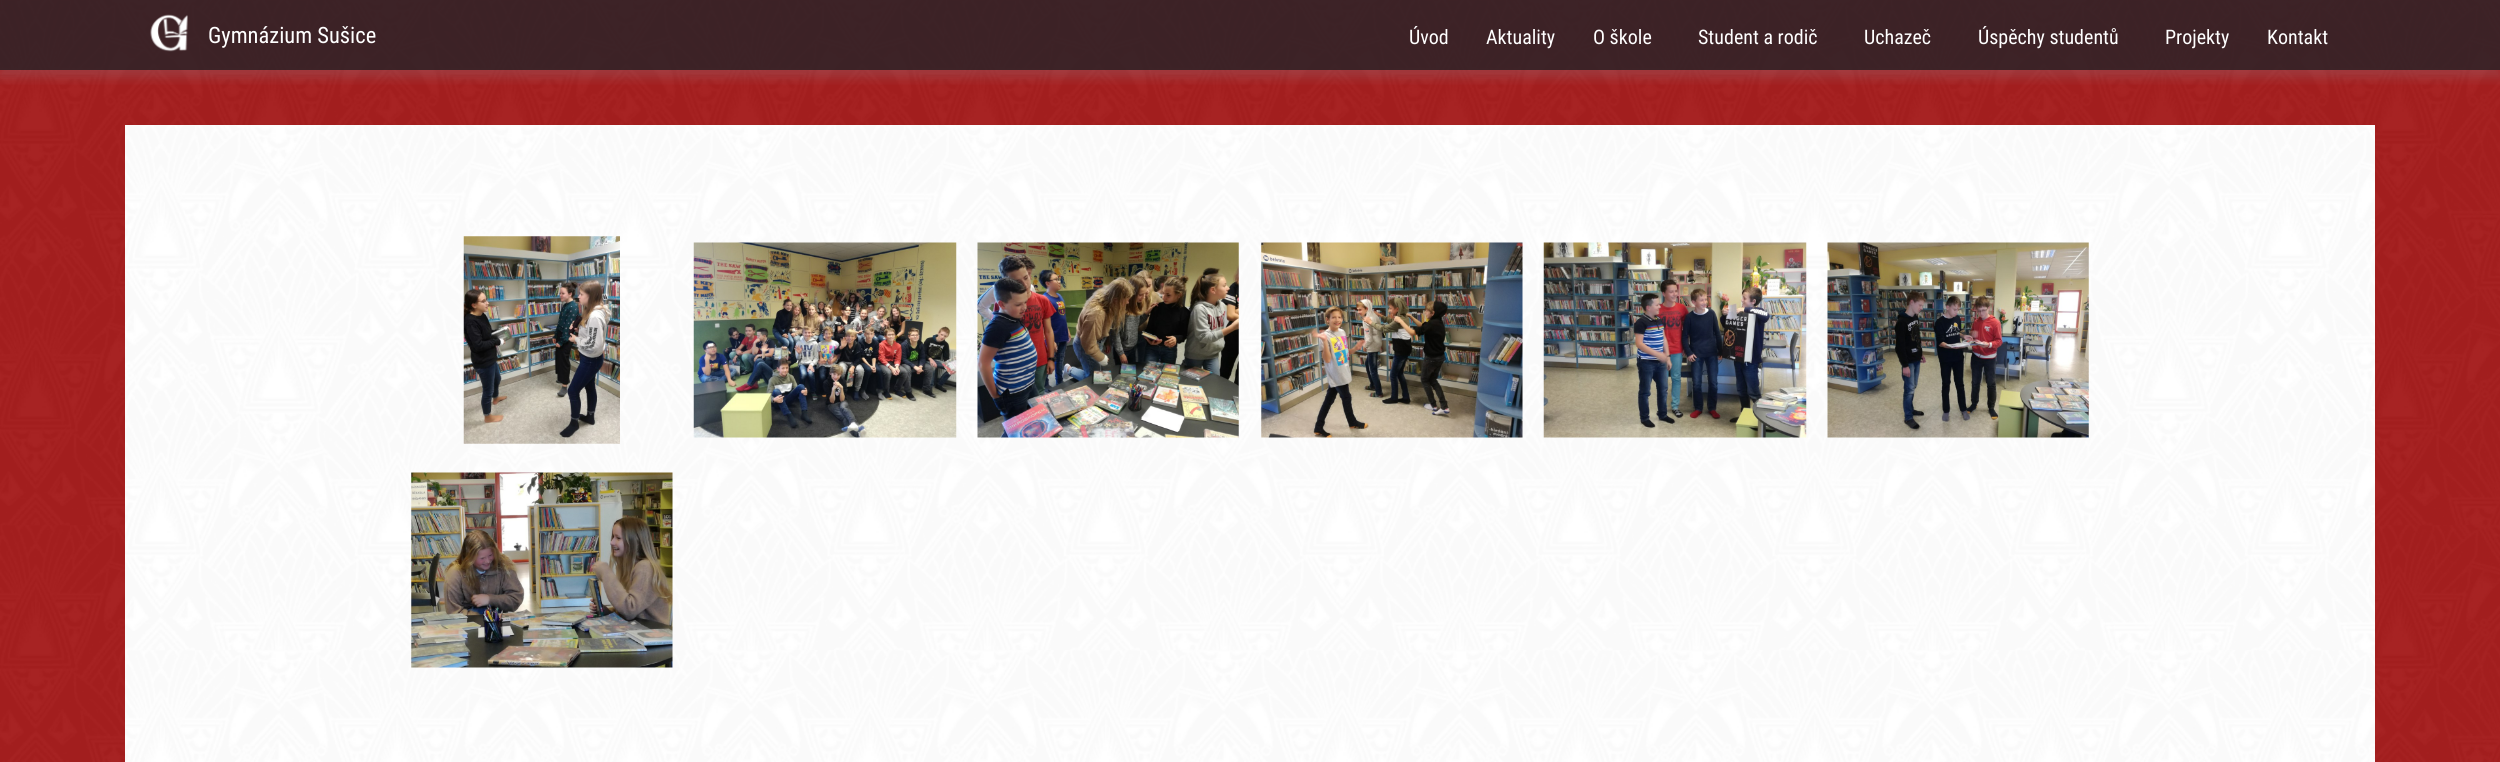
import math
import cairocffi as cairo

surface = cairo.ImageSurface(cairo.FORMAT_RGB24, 2500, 762)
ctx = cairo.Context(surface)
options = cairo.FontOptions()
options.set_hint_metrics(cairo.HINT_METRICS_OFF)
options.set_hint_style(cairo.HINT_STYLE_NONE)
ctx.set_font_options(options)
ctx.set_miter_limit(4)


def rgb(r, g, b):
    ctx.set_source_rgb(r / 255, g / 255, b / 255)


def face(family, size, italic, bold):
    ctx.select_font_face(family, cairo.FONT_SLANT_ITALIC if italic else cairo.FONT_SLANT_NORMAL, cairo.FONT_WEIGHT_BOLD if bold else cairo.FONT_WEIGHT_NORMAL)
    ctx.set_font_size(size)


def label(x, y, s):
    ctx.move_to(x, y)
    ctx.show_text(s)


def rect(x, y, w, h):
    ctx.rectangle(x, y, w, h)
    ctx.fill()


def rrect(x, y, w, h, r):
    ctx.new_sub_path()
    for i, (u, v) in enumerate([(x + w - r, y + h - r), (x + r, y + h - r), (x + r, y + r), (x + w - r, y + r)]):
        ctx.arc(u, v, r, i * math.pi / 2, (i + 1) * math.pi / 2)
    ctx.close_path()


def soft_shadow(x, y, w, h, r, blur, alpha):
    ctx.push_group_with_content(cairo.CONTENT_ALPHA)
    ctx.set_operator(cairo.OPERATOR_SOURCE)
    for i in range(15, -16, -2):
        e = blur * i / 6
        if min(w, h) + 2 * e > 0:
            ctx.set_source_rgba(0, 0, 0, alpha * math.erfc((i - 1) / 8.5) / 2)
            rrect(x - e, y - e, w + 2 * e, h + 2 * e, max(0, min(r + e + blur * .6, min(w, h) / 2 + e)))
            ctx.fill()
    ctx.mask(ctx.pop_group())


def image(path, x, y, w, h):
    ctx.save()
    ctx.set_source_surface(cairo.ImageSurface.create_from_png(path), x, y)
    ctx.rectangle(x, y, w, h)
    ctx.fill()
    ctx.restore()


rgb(153, 0, 0)
ctx.paint()
image('image0.png', 0, 0, 2500, 762)
ctx.save()
ctx.rectangle(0, 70, 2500, 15)
ctx.clip()
rgb(144, 161, 180)
soft_shadow(-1, 5, 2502, 73, 0, 5.5, 0.2)
ctx.restore()
ctx.set_source_rgba(0.137, 0.137, 0.157, 0.8)
rect(0, 0, 2500, 70)
image('image1.png', 150, 14, 38, 38)
face('Roboto Condensed', 22.5, 0, 0)
rgb(255, 255, 255)
label(208, 43, 'Gymnázium Sušice')
face('Roboto Condensed', 20, 0, 0)
label(1409, 44, 'Úvod')
label(1486, 44, 'Aktuality')
label(1593, 44, 'O škole')
label(1698, 44, 'Student a rodič')
label(1864, 44, 'Uchazeč')
label(1978, 44, 'Úspěchy studentů')
label(2165, 44, 'Projekty')
label(2267, 44, 'Kontakt')
rect(125, 125, 2250, 637)
image('image2.png', 125, 125, 2250, 637)
image('image3.png', 463, 236, 157, 208)
image('image4.png', 693, 242, 264, 196)
image('image5.png', 977, 242, 262, 196)
image('image6.png', 1261, 242, 262, 196)
image('image7.png', 1543, 242, 264, 196)
image('image8.png', 1827, 242, 262, 196)
image('image9.png', 411, 472, 262, 196)
surface.write_to_png('render.png')
